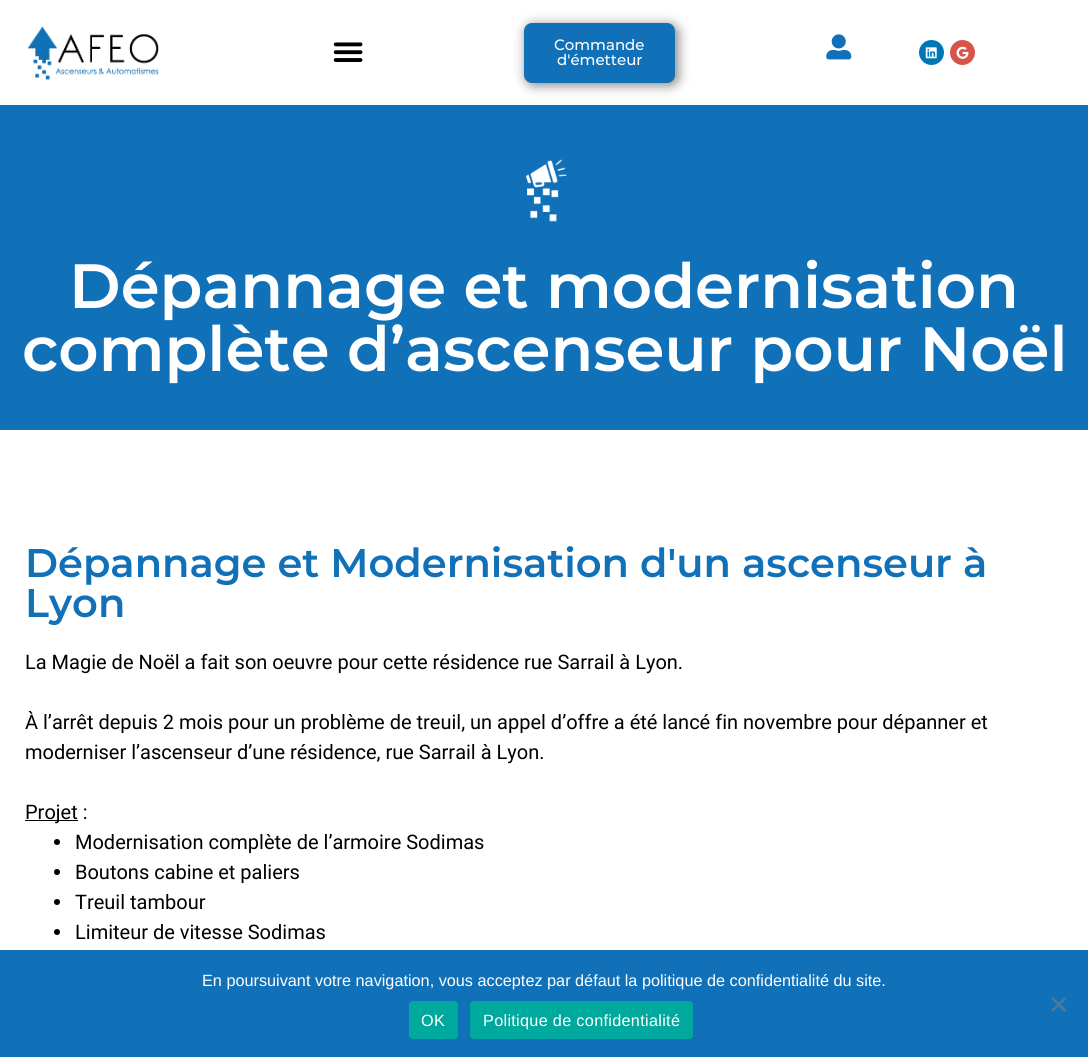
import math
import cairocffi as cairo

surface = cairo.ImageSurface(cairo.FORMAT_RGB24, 1088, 1057)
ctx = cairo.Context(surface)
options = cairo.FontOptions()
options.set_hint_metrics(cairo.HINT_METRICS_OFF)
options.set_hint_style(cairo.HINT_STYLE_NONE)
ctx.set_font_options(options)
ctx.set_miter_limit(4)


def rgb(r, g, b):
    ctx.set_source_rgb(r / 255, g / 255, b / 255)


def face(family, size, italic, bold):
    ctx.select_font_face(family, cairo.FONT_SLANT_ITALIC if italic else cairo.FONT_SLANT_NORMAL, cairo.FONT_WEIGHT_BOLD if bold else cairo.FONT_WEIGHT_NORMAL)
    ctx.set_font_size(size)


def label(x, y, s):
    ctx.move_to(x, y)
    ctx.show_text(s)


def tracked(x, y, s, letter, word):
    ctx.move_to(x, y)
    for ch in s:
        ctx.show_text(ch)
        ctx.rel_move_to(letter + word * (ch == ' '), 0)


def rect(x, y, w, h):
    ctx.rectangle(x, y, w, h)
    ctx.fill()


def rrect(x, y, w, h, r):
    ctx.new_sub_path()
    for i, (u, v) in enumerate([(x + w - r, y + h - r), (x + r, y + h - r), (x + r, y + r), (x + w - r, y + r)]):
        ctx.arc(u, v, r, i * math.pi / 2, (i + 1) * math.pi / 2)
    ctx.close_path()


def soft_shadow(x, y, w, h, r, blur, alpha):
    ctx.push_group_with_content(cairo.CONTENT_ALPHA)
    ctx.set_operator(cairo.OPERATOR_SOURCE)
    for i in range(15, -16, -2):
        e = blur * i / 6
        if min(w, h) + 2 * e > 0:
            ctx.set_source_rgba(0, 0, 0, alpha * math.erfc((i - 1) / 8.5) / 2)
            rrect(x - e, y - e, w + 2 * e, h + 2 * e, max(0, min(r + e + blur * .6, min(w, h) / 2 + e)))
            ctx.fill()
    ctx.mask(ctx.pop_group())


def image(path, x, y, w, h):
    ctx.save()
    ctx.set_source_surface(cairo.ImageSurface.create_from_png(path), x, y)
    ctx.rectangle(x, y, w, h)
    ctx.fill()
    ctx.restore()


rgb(255, 255, 255)
ctx.paint()
image('image0.png', 27, 26, 132, 54)
image('image1.png', 333, 42, 30, 20)
rgb(0, 0, 0)
soft_shadow(526, 25, 152, 60, 8, 6, 0.5)
rgb(17, 113, 184)
rrect(524, 23, 151, 60, 8)
ctx.fill()
face('Montserrat Medium', 15, 0, 0)
rgb(255, 255, 255)
label(554, 50, 'Commande')
label(557, 65, 'd\'émetteur')
image('image2.png', 826, 34, 26, 26)
rgb(0, 119, 181)
ctx.arc(931.5, 52.5, 12.5, 0, 2 * math.pi)
ctx.fill()
image('image3.png', 925, 47, 12, 12)
rgb(216, 83, 73)
ctx.arc(962.5, 52.5, 12.5, 0, 2 * math.pi)
ctx.fill()
image('image4.png', 956, 46, 13, 13)
rgb(17, 113, 184)
rect(0, 105, 1088, 325)
image('image5.png', 526, 159, 41, 63)
face('Montserrat SemiBold', 62.5, 0, 0)
rgb(255, 255, 255)
label(69, 308, 'Dépannage et modernisation')
label(22, 371, 'complète d’ascenseur pour Noël')
face('Montserrat SemiBold', 40, 0, 0)
rgb(17, 113, 184)
label(25, 577, 'Dépannage et Modernisation d\'un ascenseur à')
label(25, 617, 'Lyon')
face('Roboto', 20, 0, 0)
rgb(0, 0, 0)
label(25, 669, 'La Magie de Noël a fait son oeuvre pour cette résidence rue Sarrail à Lyon.')
label(25, 729, 'À l’arrêt depuis 2 mois pour un problème de treuil, un appel d’offre a été lancé fin novembre pour dépanner et')
label(25, 759, 'moderniser l’ascenseur d’une résidence, rue Sarrail à Lyon.')
rect(25, 820, 53, 1)
label(25, 819, 'Projet :')
ctx.new_path()
ctx.arc(57, 842, 3, 0, 2 * math.pi)
ctx.fill()
label(75, 849, 'Modernisation complète de l’armoire Sodimas')
ctx.new_path()
ctx.arc(57, 872, 3, 0, 2 * math.pi)
ctx.fill()
label(75, 879, 'Boutons cabine et paliers')
ctx.new_path()
ctx.arc(57, 902, 3, 0, 2 * math.pi)
ctx.fill()
label(75, 909, 'Treuil tambour')
ctx.new_path()
ctx.arc(57, 932, 3, 0, 2 * math.pi)
ctx.fill()
label(75, 939, 'Limiteur de vitesse Sodimas')
rgb(17, 113, 184)
rect(0, 950, 1088, 107)
face('Liberation Sans', 16.25, 0, 0)
rgb(255, 255, 255)
label(202, 986, 'En poursuivant votre navigation, vous acceptez par défaut la politique de confidentialité du site.')
rgb(73, 121, 156)
ctx.new_path()
ctx.move_to(1064.5, 997)
ctx.line_to(1066.5, 998.5)
ctx.line_to(1053, 1012)
ctx.line_to(1051, 1010)
ctx.close_path()
ctx.fill()
ctx.new_path()
ctx.move_to(1051, 998.5)
ctx.line_to(1053, 997)
ctx.line_to(1066.5, 1010)
ctx.line_to(1064.5, 1012)
ctx.close_path()
ctx.fill()
rgb(0, 169, 157)
rrect(409, 1001, 49, 38, 4)
ctx.fill()
rgb(255, 255, 255)
tracked(421, 1026, 'OK', 0.3, 0)
rgb(0, 169, 157)
rrect(470, 1001, 223, 38, 4)
ctx.fill()
rgb(255, 255, 255)
tracked(483, 1026, 'Politique de confidentialité', 0.3, 0)
surface.write_to_png('render.png')
